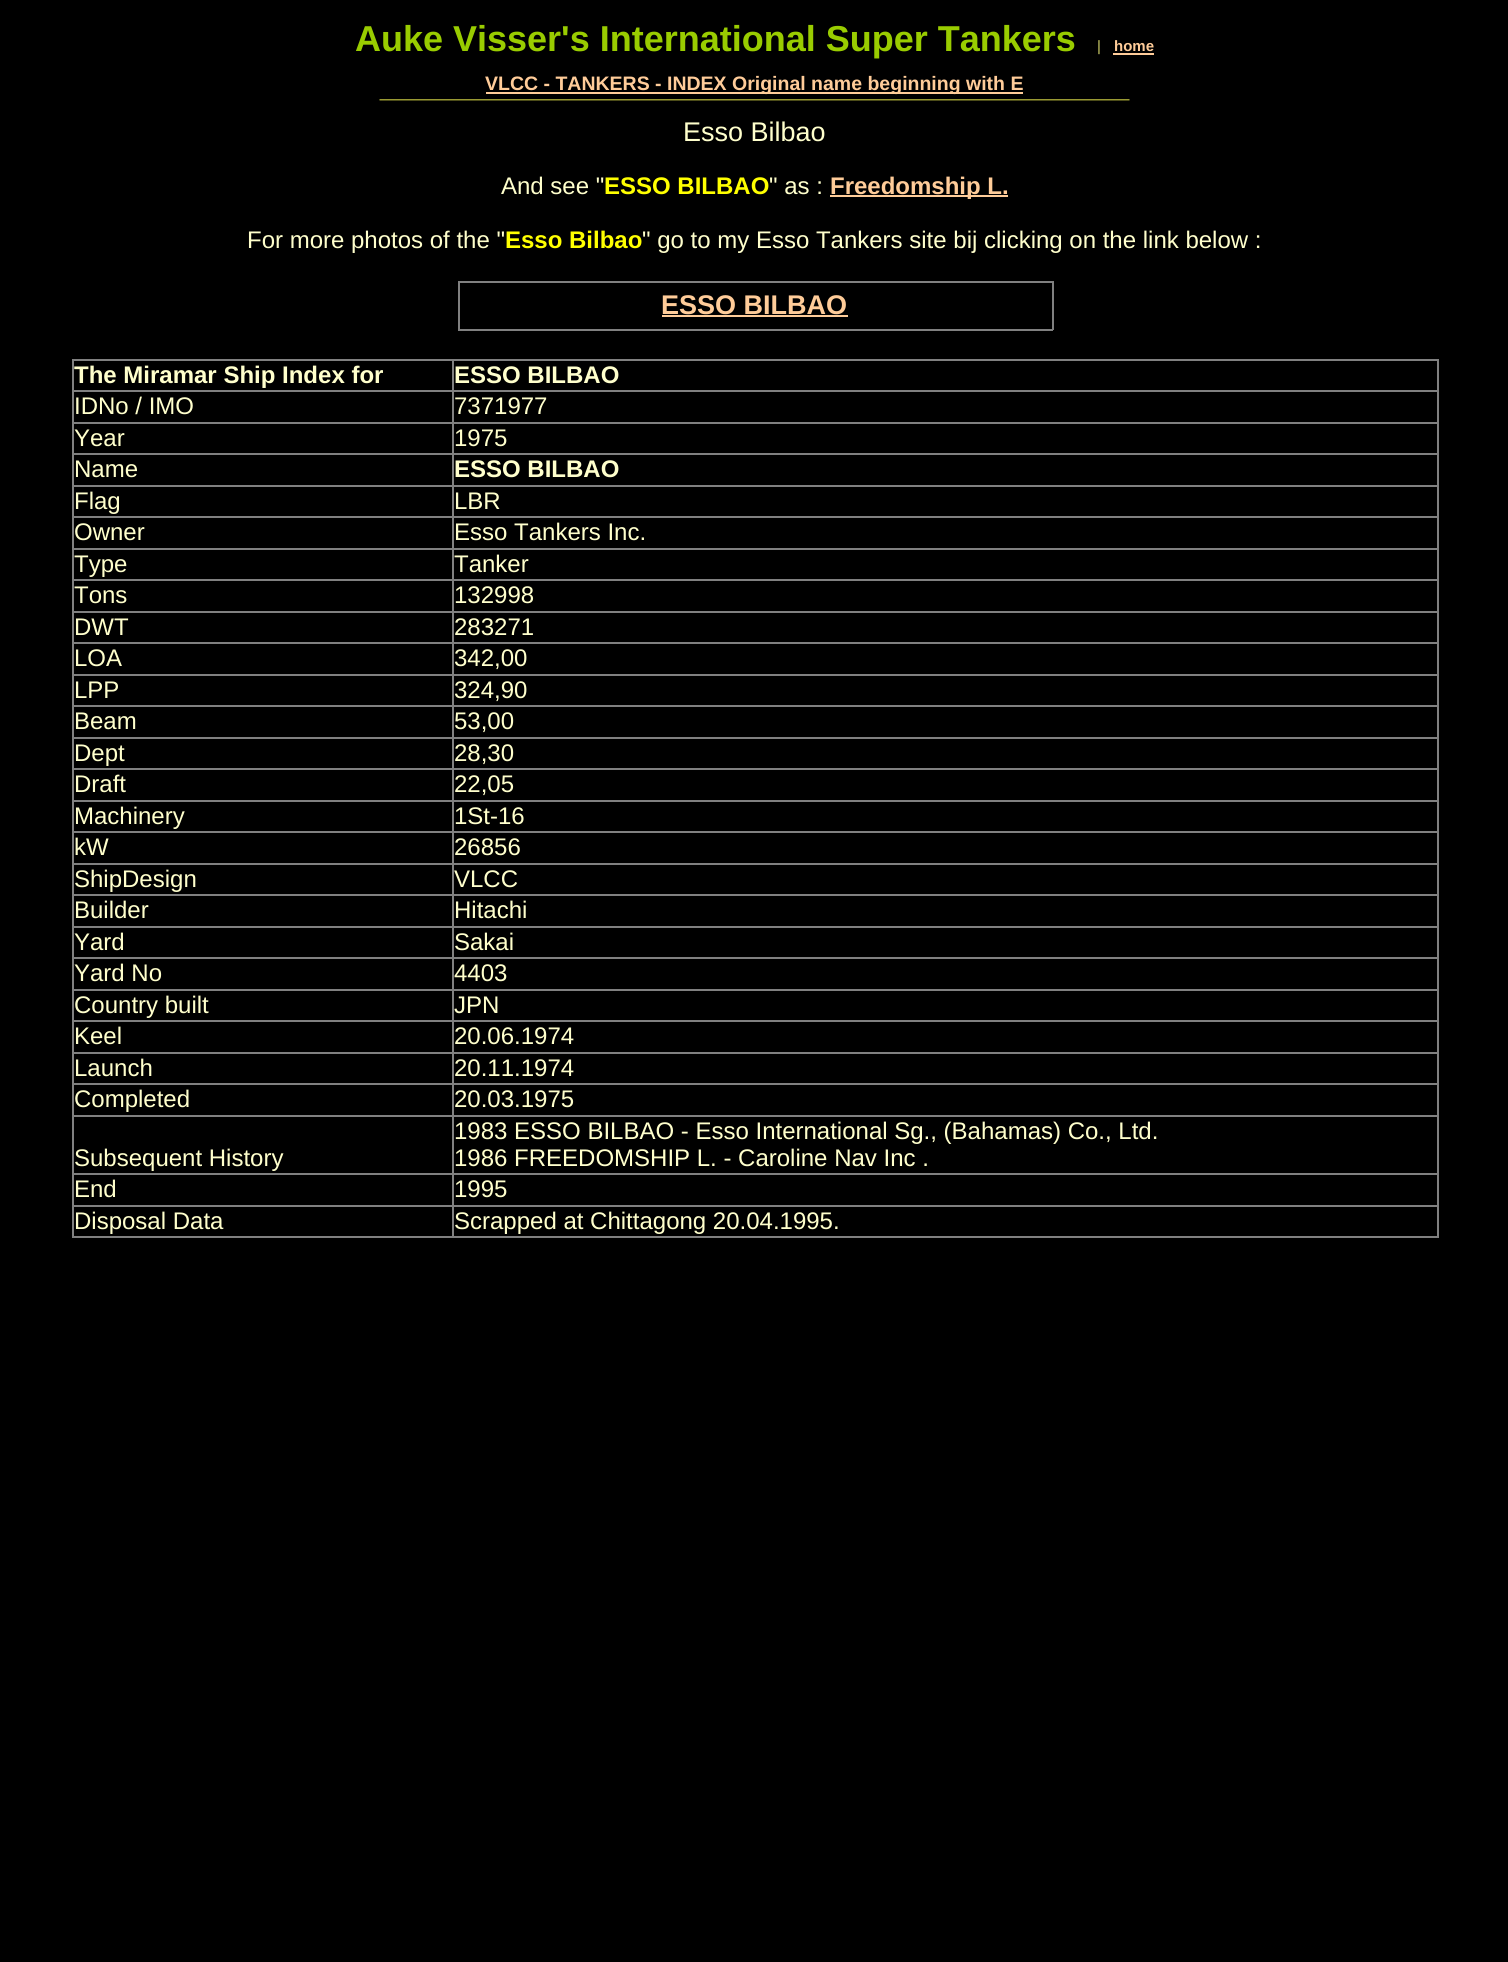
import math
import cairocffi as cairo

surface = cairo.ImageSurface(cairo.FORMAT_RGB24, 1508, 1962)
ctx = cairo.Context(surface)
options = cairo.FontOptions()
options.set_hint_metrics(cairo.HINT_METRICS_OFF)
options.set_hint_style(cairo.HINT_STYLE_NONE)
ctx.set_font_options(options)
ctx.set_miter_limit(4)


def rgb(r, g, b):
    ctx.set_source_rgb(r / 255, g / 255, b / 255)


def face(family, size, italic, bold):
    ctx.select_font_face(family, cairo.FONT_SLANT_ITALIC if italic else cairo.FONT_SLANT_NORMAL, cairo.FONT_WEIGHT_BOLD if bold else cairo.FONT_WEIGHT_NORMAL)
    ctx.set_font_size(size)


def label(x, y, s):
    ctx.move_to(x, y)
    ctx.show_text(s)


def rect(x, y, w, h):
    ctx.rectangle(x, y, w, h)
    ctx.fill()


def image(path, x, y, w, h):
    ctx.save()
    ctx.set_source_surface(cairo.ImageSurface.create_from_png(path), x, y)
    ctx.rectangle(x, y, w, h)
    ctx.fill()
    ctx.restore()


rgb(0, 0, 0)
ctx.paint()
face('Liberation Sans', 36, 0, 1)
rgb(153, 204, 0)
label(355, 51, 'Auke Visser\'s International Super Tankers')
face('Liberation Sans', 15, 0, 0)
rgb(204, 204, 102)
label(1097, 51, '|')
face('Liberation Sans', 15, 0, 1)
rgb(255, 204, 153)
label(1114, 51, 'home')
rect(1113, 53, 41, 2)
rect(486, 92, 537, 2)
face('Liberation Sans', 19.5, 0, 1)
label(485, 90, 'VLCC - TANKERS - INDEX Original name beginning with E')
image('image0.png', 379, 99, 751, 2)
face('Liberation Sans', 27, 0, 0)
rgb(255, 255, 204)
label(683, 141, 'Esso Bilbao')
face('Liberation Sans', 24, 0, 0)
label(501, 194, 'And see "')
face('Liberation Sans', 24, 0, 1)
rgb(255, 255, 0)
label(604, 194, 'ESSO BILBAO')
face('Liberation Sans', 24, 0, 0)
rgb(255, 255, 204)
label(769, 194, '" as :')
rgb(255, 204, 153)
rect(830, 195, 178, 2)
face('Liberation Sans', 24, 0, 1)
label(830, 194, 'Freedomship L.')
face('Liberation Sans', 24, 0, 0)
rgb(255, 255, 204)
label(247, 248, 'For more photos of the "')
face('Liberation Sans', 24, 0, 1)
rgb(255, 255, 0)
label(505, 248, 'Esso Bilbao')
face('Liberation Sans', 24, 0, 0)
rgb(255, 255, 204)
label(642, 248, '" go to my Esso Tankers site bij clicking on the link below :')
rgb(128, 128, 128)
rect(458, 281, 595, 2)
rect(1052, 281, 2, 49)
rect(458, 329, 595, 2)
rect(458, 281, 2, 49)
face('Liberation Sans', 27, 0, 1)
rgb(255, 204, 153)
label(661, 314, 'ESSO BILBAO')
rect(662, 315, 186, 2)
rgb(128, 128, 128)
rect(72, 359, 1367, 2)
rect(1437, 359, 2, 879)
rect(72, 1236, 1367, 2)
rect(72, 359, 2, 879)
face('Liberation Sans', 24, 0, 1)
rgb(255, 255, 204)
label(74, 383, 'The Miramar Ship Index for')
rgb(128, 128, 128)
rect(452, 390, 987, 2)
rect(452, 422, 987, 2)
rect(452, 453, 987, 2)
rect(452, 485, 987, 2)
rect(452, 516, 987, 2)
rect(452, 548, 987, 2)
rect(452, 579, 987, 2)
rect(452, 611, 987, 2)
rect(452, 642, 987, 2)
rect(452, 674, 987, 2)
rect(452, 705, 987, 2)
rect(452, 737, 987, 2)
rect(452, 768, 987, 2)
rect(452, 800, 987, 2)
rect(452, 831, 987, 2)
rect(452, 863, 987, 2)
rect(452, 894, 987, 2)
rect(452, 926, 987, 2)
rect(452, 957, 987, 2)
rect(452, 989, 987, 2)
rect(452, 1020, 987, 2)
rect(452, 1052, 987, 2)
rect(452, 1083, 987, 2)
rect(452, 1115, 987, 2)
rect(452, 1173, 987, 2)
rect(452, 1205, 987, 2)
rect(452, 1205, 2, 33)
rect(72, 1205, 381, 2)
rect(452, 1173, 2, 33)
rect(72, 1173, 381, 2)
rect(452, 1115, 2, 60)
rect(72, 1115, 381, 2)
rect(452, 1083, 2, 33)
rect(72, 1083, 381, 2)
rect(452, 1052, 2, 33)
rect(72, 1052, 381, 2)
rect(452, 1020, 2, 33)
rect(72, 1020, 381, 2)
rect(452, 989, 2, 33)
rect(72, 989, 381, 2)
rect(452, 957, 2, 33)
rect(72, 957, 381, 2)
rect(452, 926, 2, 33)
rect(72, 926, 381, 2)
rect(452, 894, 2, 33)
rect(72, 894, 381, 2)
rect(452, 863, 2, 33)
rect(72, 863, 381, 2)
rect(452, 831, 2, 33)
rect(72, 831, 381, 2)
rect(452, 800, 2, 33)
rect(72, 800, 381, 2)
rect(452, 768, 2, 33)
rect(72, 768, 381, 2)
rect(452, 737, 2, 33)
rect(72, 737, 381, 2)
rect(452, 705, 2, 33)
rect(72, 705, 381, 2)
rect(452, 674, 2, 33)
rect(72, 674, 381, 2)
rect(452, 642, 2, 33)
rect(72, 642, 381, 2)
rect(452, 611, 2, 33)
rect(72, 611, 381, 2)
rect(452, 579, 2, 33)
rect(72, 579, 381, 2)
rect(452, 548, 2, 33)
rect(72, 548, 381, 2)
rect(452, 516, 2, 33)
rect(72, 516, 381, 2)
rect(452, 485, 2, 33)
rect(72, 485, 381, 2)
rect(452, 453, 2, 33)
rect(72, 453, 381, 2)
rect(452, 422, 2, 33)
rect(72, 422, 381, 2)
rect(452, 390, 2, 33)
rect(72, 390, 381, 2)
rect(452, 359, 2, 33)
rgb(255, 255, 204)
label(454, 383, 'ESSO BILBAO')
face('Liberation Sans', 24, 0, 0)
label(74, 414, 'IDNo / IMO')
label(454, 414, '7371977')
label(74, 446, 'Year')
label(454, 446, '1975')
label(74, 477, 'Name')
face('Liberation Sans', 24, 0, 1)
label(454, 477, 'ESSO BILBAO')
face('Liberation Sans', 24, 0, 0)
label(74, 509, 'Flag')
label(454, 509, 'LBR')
label(74, 540, 'Owner')
label(454, 540, 'Esso Tankers Inc.')
label(74, 572, 'Type')
label(454, 572, 'Tanker')
label(74, 603, 'Tons')
label(454, 603, '132998')
label(74, 635, 'DWT')
label(454, 635, '283271')
label(74, 666, 'LOA')
label(454, 666, '342,00')
label(74, 698, 'LPP')
label(454, 698, '324,90')
label(74, 729, 'Beam')
label(454, 729, '53,00')
label(74, 761, 'Dept')
label(454, 761, '28,30')
label(74, 792, 'Draft')
label(454, 792, '22,05')
label(74, 824, 'Machinery')
label(454, 824, '1St-16')
label(74, 855, 'kW')
label(454, 855, '26856')
label(74, 887, 'ShipDesign')
label(454, 887, 'VLCC')
label(74, 918, 'Builder')
label(454, 918, 'Hitachi')
label(74, 950, 'Yard')
label(454, 950, 'Sakai')
label(74, 981, 'Yard No')
label(454, 981, '4403')
label(74, 1013, 'Country built')
label(454, 1013, 'JPN')
label(74, 1044, 'Keel')
label(454, 1044, '20.06.1974')
label(74, 1076, 'Launch')
label(454, 1076, '20.11.1974')
label(74, 1107, 'Completed')
label(454, 1107, '20.03.1975')
label(74, 1166, 'Subsequent History')
label(454, 1139, '1983 ESSO BILBAO - Esso International Sg., (Bahamas) Co., Ltd.')
label(454, 1166, '1986 FREEDOMSHIP L. - Caroline Nav Inc .')
label(74, 1197, 'End')
label(454, 1197, '1995')
label(74, 1229, 'Disposal Data')
label(454, 1229, 'Scrapped at Chittagong 20.04.1995.')
surface.write_to_png('render.png')
